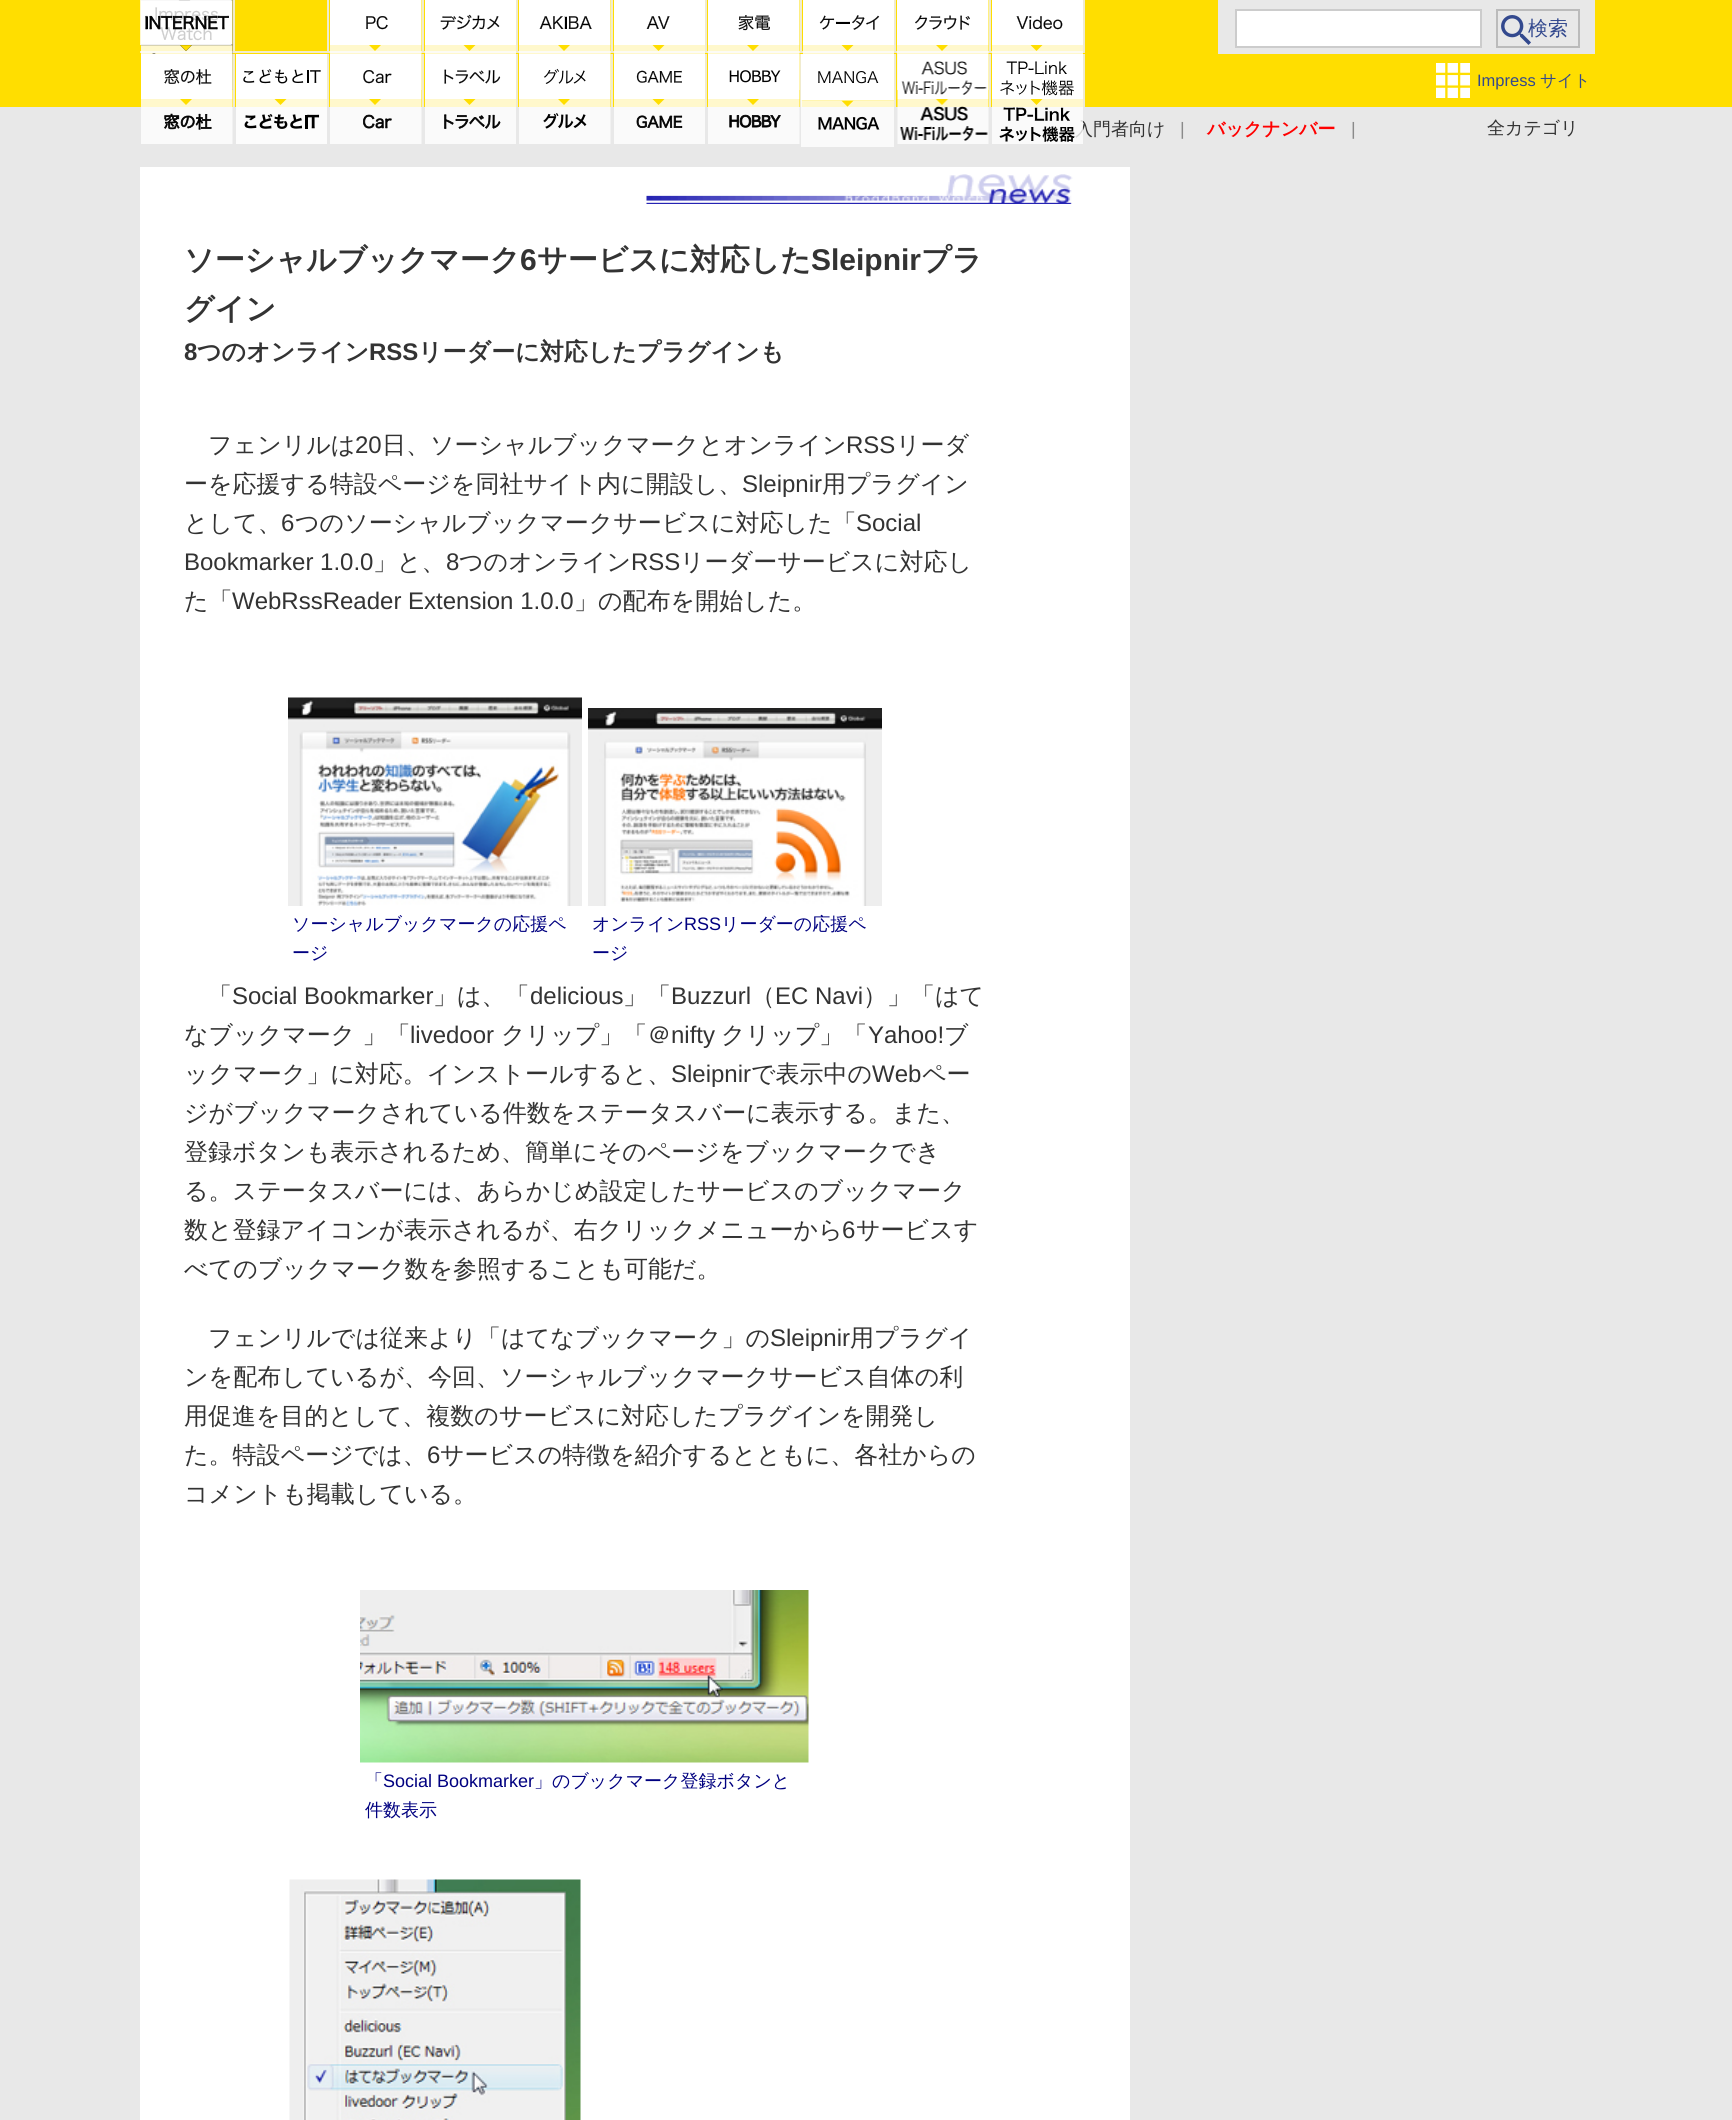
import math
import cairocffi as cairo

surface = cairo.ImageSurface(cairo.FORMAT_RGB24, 1732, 2120)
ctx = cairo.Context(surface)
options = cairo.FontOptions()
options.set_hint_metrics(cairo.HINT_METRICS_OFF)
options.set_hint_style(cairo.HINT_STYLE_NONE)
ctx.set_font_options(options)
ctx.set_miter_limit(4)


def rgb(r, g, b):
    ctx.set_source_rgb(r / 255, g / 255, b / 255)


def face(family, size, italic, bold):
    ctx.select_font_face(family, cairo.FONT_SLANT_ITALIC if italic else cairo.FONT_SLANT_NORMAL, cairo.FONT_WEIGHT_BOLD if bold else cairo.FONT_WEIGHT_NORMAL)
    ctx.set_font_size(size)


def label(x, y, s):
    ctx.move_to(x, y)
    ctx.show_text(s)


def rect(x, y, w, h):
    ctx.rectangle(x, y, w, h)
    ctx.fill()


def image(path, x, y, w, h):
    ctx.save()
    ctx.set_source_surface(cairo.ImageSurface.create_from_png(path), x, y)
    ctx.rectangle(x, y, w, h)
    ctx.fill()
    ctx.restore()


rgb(232, 232, 232)
ctx.paint()
rgb(255, 222, 0)
rect(0, 0, 1732, 107)
rgb(240, 235, 207)
rect(140, 51, 945, 2)
rect(327, 0, 2, 53)
image('image1.png', 141, 0, 92, 90)
image('image0.png', 140, 0, 91, 45)
rect(233, 0, 2, 53)
rect(422, 0, 2, 53)
image('image2.png', 330, 0, 92, 90)
rect(516, 0, 2, 53)
image('image3.png', 425, 0, 91, 54)
rect(611, 0, 2, 53)
image('image4.png', 519, 0, 92, 90)
rect(705, 0, 2, 53)
image('image5.png', 614, 0, 91, 54)
rect(800, 0, 2, 53)
image('image6.png', 708, 0, 92, 90)
rect(894, 0, 2, 53)
image('image7.png', 803, 0, 91, 55)
rect(989, 0, 2, 53)
image('image8.png', 897, 0, 92, 90)
rect(1083, 0, 2, 53)
image('image9.png', 992, 0, 91, 54)
rgb(232, 232, 232)
rect(1218, 0, 377, 54)
rgb(255, 255, 255)
ctx.rectangle(1236, 10, 245, 37)
ctx.fill_preserve()
rgb(204, 204, 204)
ctx.stroke()
image('image10.png', 1501, 15, 30, 30)
ctx.rectangle(1497, 10, 82, 37)
rgb(187, 187, 187)
ctx.stroke()
face('WenQuanYi Zen Hei Medium', 20, 0, 0)
rgb(51, 73, 142)
label(1528, 35, '検索')
rgb(240, 235, 207)
rect(233, 54, 2, 53)
image('image11.png', 141, 54, 92, 90)
rect(327, 54, 2, 53)
image('image12.png', 236, 54, 91, 90)
rect(422, 54, 2, 53)
image('image13.png', 330, 54, 92, 90)
rect(516, 54, 2, 53)
image('image14.png', 425, 54, 91, 90)
rect(611, 54, 2, 53)
image('image15.png', 519, 54, 92, 90)
rect(705, 54, 2, 53)
image('image16.png', 614, 54, 91, 90)
rect(800, 54, 2, 53)
image('image17.png', 708, 54, 92, 90)
rect(894, 54, 2, 53)
image('image18.png', 801, 54, 93, 93)
rect(989, 54, 2, 53)
image('image19.png', 897, 54, 92, 90)
rect(1083, 54, 2, 53)
face('WenQuanYi Zen Hei Medium', 18, 0, 0)
rgb(51, 51, 51)
label(1075, 135, '入門者向け')
image('image20.png', 992, 54, 91, 90)
image('image21.png', 1436, 63, 34, 35)
face('Liberation Sans', 16.5, 0, 0)
rgb(51, 73, 142)
label(1477, 86, 'Impress')
face('WenQuanYi Zen Hei Medium', 16.5, 0, 0)
label(1540, 86, 'サイト')
face('Liberation Sans', 18, 0, 0)
rgb(138, 138, 138)
label(1180, 135, '|')
face('WenQuanYi Zen Hei', 18, 0, 1)
rgb(255, 0, 0)
label(1207, 135, 'バックナンバー')
face('Liberation Sans', 18, 0, 0)
rgb(138, 138, 138)
label(1351, 135, '|')
face('WenQuanYi Zen Hei Medium', 18, 0, 0)
rgb(51, 51, 51)
label(1487, 134, '全カテゴリ')
rgb(255, 255, 255)
rect(140, 167, 990, 1953)
image('image22.png', 646, 174, 427, 30)
face('WenQuanYi Zen Hei', 30, 0, 1)
rgb(51, 51, 51)
label(184, 270, 'ソーシャルブックマーク')
face('Liberation Sans', 30, 0, 1)
label(520, 270, '6')
face('WenQuanYi Zen Hei', 30, 0, 1)
label(537, 270, 'サービスに対応した')
face('Liberation Sans', 30, 0, 1)
label(811, 270, 'Sleipnir')
face('WenQuanYi Zen Hei', 30, 0, 1)
label(921, 270, 'プラ')
label(184, 319, 'グイン')
face('Liberation Sans', 24, 0, 1)
label(184, 360, '8')
face('WenQuanYi Zen Hei', 24, 0, 1)
label(197, 360, 'つのオンライン')
face('Liberation Sans', 24, 0, 1)
label(369, 360, 'RSS')
face('WenQuanYi Zen Hei', 24, 0, 1)
label(418, 360, 'リーダーに対応したプラグインも')
face('WenQuanYi Zen Hei Medium', 24, 0, 0)
label(208, 453, 'フェンリルは')
face('Liberation Sans', 24, 0, 0)
label(355, 453, '20')
face('WenQuanYi Zen Hei Medium', 24, 0, 0)
label(382, 453, '日、ソーシャルブックマークとオンライン')
face('Liberation Sans', 24, 0, 0)
label(846, 453, 'RSS')
face('WenQuanYi Zen Hei Medium', 24, 0, 0)
label(896, 453, 'リーダ')
label(184, 492, 'ーを応援する特設ページを同社サイト内に開設し、')
face('Liberation Sans', 24, 0, 0)
label(742, 492, 'Sleipnir')
face('WenQuanYi Zen Hei Medium', 24, 0, 0)
label(822, 492, '用プラグイン')
label(184, 531, 'として、')
face('Liberation Sans', 24, 0, 0)
label(281, 531, '6')
face('WenQuanYi Zen Hei Medium', 24, 0, 0)
label(295, 531, 'つのソーシャルブックマークサービスに対応した「')
face('Liberation Sans', 24, 0, 0)
label(856, 531, 'Social')
label(184, 570, 'Bookmarker 1.0.0')
face('WenQuanYi Zen Hei Medium', 24, 0, 0)
label(373, 570, '」と、')
face('Liberation Sans', 24, 0, 0)
label(446, 570, '8')
face('WenQuanYi Zen Hei Medium', 24, 0, 0)
label(459, 570, 'つのオンライン')
face('Liberation Sans', 24, 0, 0)
label(631, 570, 'RSS')
face('WenQuanYi Zen Hei Medium', 24, 0, 0)
label(680, 570, 'リーダーサービスに対応し')
label(184, 609, 'た「')
face('Liberation Sans', 24, 0, 0)
label(232, 609, 'WebRssReader Extension 1.0.0')
face('WenQuanYi Zen Hei Medium', 24, 0, 0)
label(574, 609, '」の配布を開始した。')
image('image23.png', 288, 697, 294, 209)
image('image24.png', 588, 708, 294, 198)
face('WenQuanYi Zen Hei Medium', 18, 0, 0)
rgb(0, 0, 128)
label(292, 930, 'ソーシャルブックマークの応援ペ')
label(292, 959, 'ージ')
label(592, 930, 'オンライン')
face('Liberation Sans', 18, 0, 0)
label(684, 930, 'RSS')
face('WenQuanYi Zen Hei Medium', 18, 0, 0)
label(721, 930, 'リーダーの応援ペ')
label(592, 959, 'ージ')
face('WenQuanYi Zen Hei Medium', 24, 0, 0)
rgb(51, 51, 51)
label(208, 1004, '「')
face('Liberation Sans', 24, 0, 0)
label(232, 1004, 'Social Bookmarker')
face('WenQuanYi Zen Hei Medium', 24, 0, 0)
label(433, 1004, '」は、「')
face('Liberation Sans', 24, 0, 0)
label(530, 1004, 'delicious')
face('WenQuanYi Zen Hei Medium', 24, 0, 0)
label(623, 1004, '」「')
face('Liberation Sans', 24, 0, 0)
label(671, 1004, 'Buzzurl')
face('WenQuanYi Zen Hei Medium', 24, 0, 0)
label(751, 1004, '（')
face('Liberation Sans', 24, 0, 0)
label(775, 1004, 'EC Navi')
face('WenQuanYi Zen Hei Medium', 24, 0, 0)
label(863, 1004, '）」「はて')
label(184, 1043, 'なブックマーク 」「')
face('Liberation Sans', 24, 0, 0)
label(410, 1043, 'livedoor')
face('WenQuanYi Zen Hei Medium', 24, 0, 0)
label(501, 1043, 'クリップ」「＠')
face('Liberation Sans', 24, 0, 0)
label(671, 1043, 'nifty')
face('WenQuanYi Zen Hei Medium', 24, 0, 0)
label(721, 1043, 'クリップ」「')
face('Liberation Sans', 24, 0, 0)
label(868, 1043, 'Yahoo!')
face('WenQuanYi Zen Hei Medium', 24, 0, 0)
label(944, 1043, 'ブ')
label(184, 1082, 'ックマーク」に対応。インストールすると、')
face('Liberation Sans', 24, 0, 0)
label(671, 1082, 'Sleipnir')
face('WenQuanYi Zen Hei Medium', 24, 0, 0)
label(751, 1082, 'で表示中の')
face('Liberation Sans', 24, 0, 0)
label(872, 1082, 'Web')
face('WenQuanYi Zen Hei Medium', 24, 0, 0)
label(922, 1082, 'ペー')
label(184, 1121, 'ジがブックマークされている件数をステータスバーに表示する。また、')
label(184, 1160, '登録ボタンも表示されるため、簡単にそのページをブックマークでき')
label(184, 1199, 'る。ステータスバーには、あらかじめ設定したサービスのブックマーク')
label(184, 1238, '数と登録アイコンが表示されるが、右クリックメニューから')
face('Liberation Sans', 24, 0, 0)
label(842, 1238, '6')
face('WenQuanYi Zen Hei Medium', 24, 0, 0)
label(856, 1238, 'サービスす')
label(184, 1277, 'べてのブックマーク数を参照することも可能だ。')
label(208, 1346, 'フェンリルでは従来より「はてなブックマーク」の')
face('Liberation Sans', 24, 0, 0)
label(770, 1346, 'Sleipnir')
face('WenQuanYi Zen Hei Medium', 24, 0, 0)
label(850, 1346, '用プラグイ')
label(184, 1385, 'ンを配布しているが、今回、ソーシャルブックマークサービス自体の利')
label(184, 1424, '用促進を目的として、複数のサービスに対応したプラグインを開発し')
label(184, 1463, 'た。特設ページでは、')
face('Liberation Sans', 24, 0, 0)
label(427, 1463, '6')
face('WenQuanYi Zen Hei Medium', 24, 0, 0)
label(440, 1463, 'サービスの特徴を紹介するとともに、各社からの')
label(184, 1502, 'コメントも掲載している。')
image('image25.png', 360, 1590, 449, 173)
face('WenQuanYi Zen Hei Medium', 18, 0, 0)
rgb(0, 0, 128)
label(365, 1787, '「')
face('Liberation Sans', 18, 0, 0)
label(383, 1787, 'Social Bookmarker')
face('WenQuanYi Zen Hei Medium', 18, 0, 0)
label(534, 1787, '」のブックマーク登録ボタンと')
label(365, 1816, '件数表示')
image('image26.png', 289, 1879, 292, 241)
surface.write_to_png('render.png')
